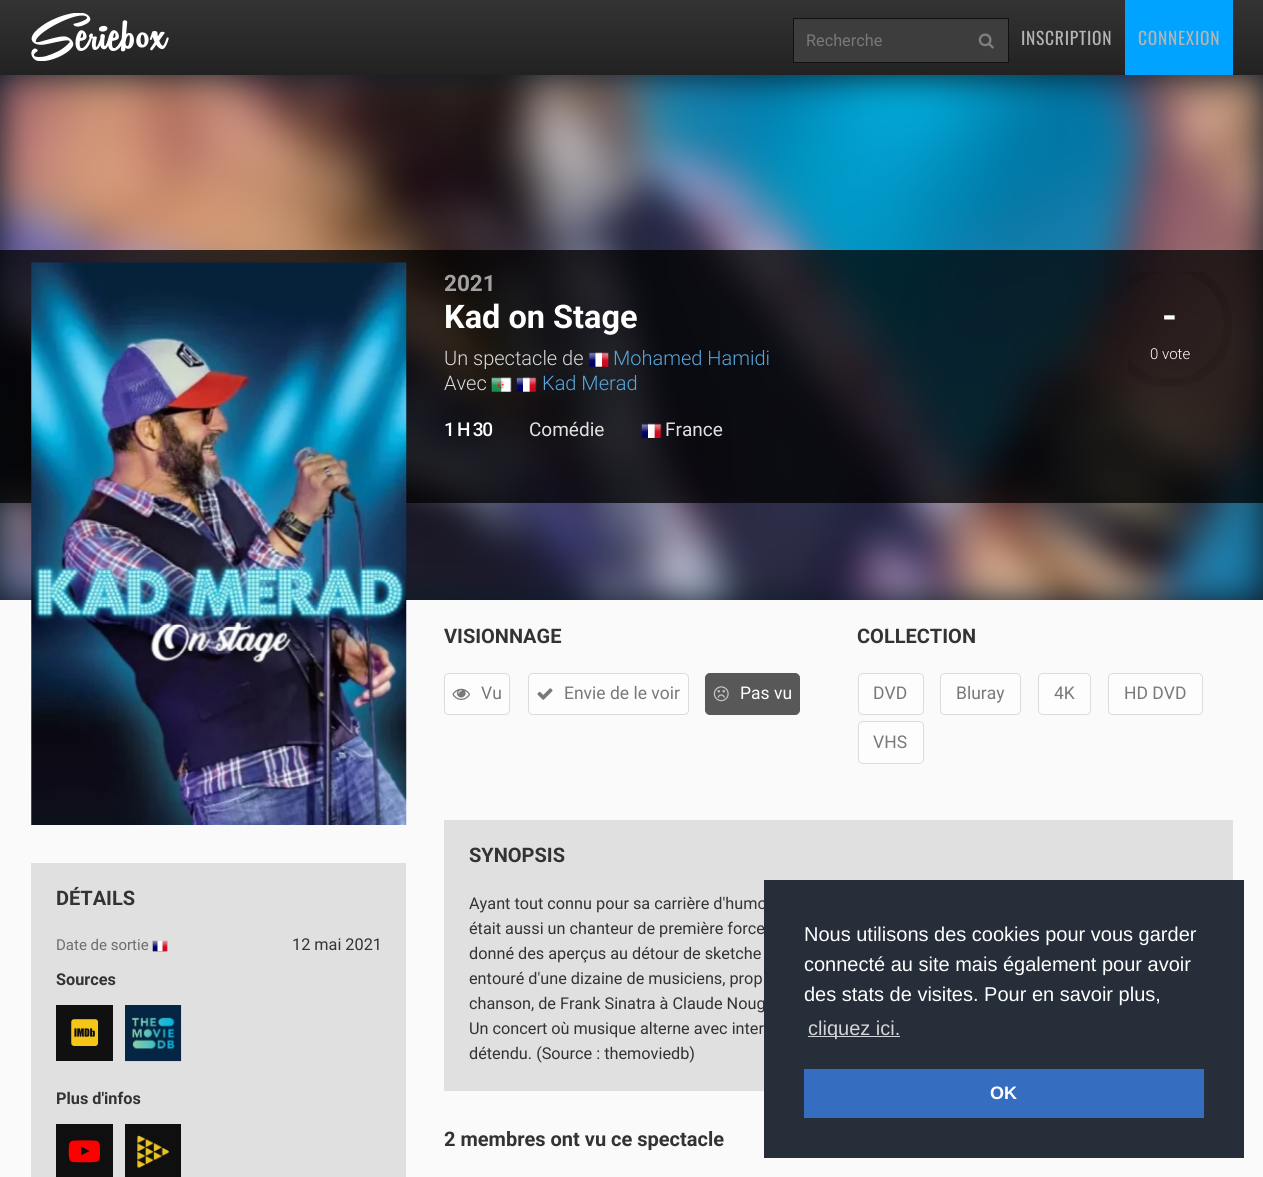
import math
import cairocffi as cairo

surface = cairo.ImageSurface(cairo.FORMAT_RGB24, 1263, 1177)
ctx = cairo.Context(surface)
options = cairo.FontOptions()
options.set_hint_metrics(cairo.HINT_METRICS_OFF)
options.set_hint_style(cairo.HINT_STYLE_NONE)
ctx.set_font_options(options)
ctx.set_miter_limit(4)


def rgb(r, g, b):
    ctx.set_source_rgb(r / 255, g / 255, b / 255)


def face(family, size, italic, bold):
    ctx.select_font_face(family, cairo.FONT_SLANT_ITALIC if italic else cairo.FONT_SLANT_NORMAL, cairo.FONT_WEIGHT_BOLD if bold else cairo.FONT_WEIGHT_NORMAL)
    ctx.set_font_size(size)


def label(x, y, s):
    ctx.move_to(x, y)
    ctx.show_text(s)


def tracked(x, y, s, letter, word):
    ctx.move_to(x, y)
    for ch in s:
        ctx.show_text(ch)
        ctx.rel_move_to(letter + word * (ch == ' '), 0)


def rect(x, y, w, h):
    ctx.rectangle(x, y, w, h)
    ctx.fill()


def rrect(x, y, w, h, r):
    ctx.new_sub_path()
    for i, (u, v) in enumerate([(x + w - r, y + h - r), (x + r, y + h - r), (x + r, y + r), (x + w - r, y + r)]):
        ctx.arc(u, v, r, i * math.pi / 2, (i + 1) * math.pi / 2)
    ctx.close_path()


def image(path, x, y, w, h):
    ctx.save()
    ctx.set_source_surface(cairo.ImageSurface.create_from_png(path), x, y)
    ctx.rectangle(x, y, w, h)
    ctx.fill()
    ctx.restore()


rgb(250, 250, 250)
ctx.paint()
gradient = cairo.LinearGradient(632, 0, 632, 75)
gradient.add_color_stop_rgba(0, 0.2, 0.2, 0.2, 1)
gradient.add_color_stop_rgba(1, 0.133, 0.133, 0.133, 1)
ctx.set_source(gradient)
rect(0, 0, 1263, 75)
image('image0.png', 31, 13, 138, 48)
rgb(61, 61, 61)
ctx.rectangle(793.5, 18.5, 215, 44)
ctx.fill_preserve()
rgb(17, 17, 17)
ctx.set_line_width(1)
ctx.stroke()
face('Roboto', 16.25, 0, 0)
rgb(121, 121, 121)
label(806, 46, 'Recherche')
image('image1.png', 978, 33, 16, 16)
face('Oswald', 17.5, 0, 0)
rgb(180, 180, 180)
tracked(1021, 45, 'INSCRIPTION', 0.75, 0)
rgb(0, 163, 255)
rect(1125, 0, 108, 75)
rgb(180, 180, 180)
tracked(1138, 45, 'CONNEXION', 0.75, 0)
rgb(10, 26, 39)
rect(0, 75, 1263, 525)
image('image2.png', 0, 75, 1263, 525)
ctx.set_source_rgba(0, 0, 0, 0.75)
rect(0, 250, 1263, 253)
face('Roboto', 22.5, 0, 1)
rgb(162, 162, 162)
label(444, 291, '2021')
face('Roboto', 32.5, 0, 1)
rgb(255, 255, 255)
label(444, 328, 'Kad on Stage')
face('Roboto Light', 20, 0, 0)
rgb(218, 218, 218)
label(444, 365, 'Un spectacle de')
image('image3.png', 588, 352, 21, 16)
rgb(88, 167, 220)
label(613, 365, 'Mohamed Hamidi')
rgb(218, 218, 218)
label(444, 390, 'Avec')
image('image4.png', 491, 377, 21, 15)
image('image5.png', 516, 377, 21, 15)
rgb(88, 167, 220)
label(542, 390, 'Kad Merad')
face('Roboto Medium', 19, 0, 0)
rgb(255, 255, 255)
tracked(444, 436, '1 H 30', -1.25, 0)
face('Roboto', 19, 0, 0)
rgb(226, 226, 226)
label(529, 436, 'Comédie')
image('image6.png', 641, 423, 21, 16)
label(665, 436, 'France')
image('image7.png', 1128, 272, 104, 115)
face('Roboto', 38, 0, 1)
rgb(255, 255, 255)
label(1162, 329, '-')
face('Roboto Light', 15, 0, 0)
label(1150, 359, '0 vote')
image('image8.png', 31, 262, 376, 563)
rgb(224, 224, 224)
rect(31, 863, 375, 314)
face('Roboto', 20, 0, 1)
rgb(51, 51, 51)
label(56, 905, 'DÉTAILS')
face('Roboto', 15, 0, 0)
rgb(109, 109, 109)
label(56, 950, 'Date de sortie')
image('image9.png', 152, 940, 16, 12)
face('Roboto', 16.25, 0, 0)
rgb(51, 51, 51)
label(292, 950, '12 mai 2021')
face('Roboto', 16.25, 0, 1)
label(56, 985, 'Sources')
rgb(16, 16, 16)
rect(56, 1005, 57, 56)
image('image10.png', 71, 1019, 28, 27)
image('image11.png', 125, 1005, 57, 57)
rgb(51, 51, 51)
label(56, 1104, 'Plus d\'infos')
rgb(15, 15, 15)
rect(56, 1124, 57, 53)
image('image12.png', 68, 1140, 32, 23)
rect(125, 1124, 56, 53)
image('image13.png', 137, 1135, 33, 33)
face('Roboto', 20, 0, 1)
rgb(51, 51, 51)
label(444, 643, 'VISIONNAGE')
rgb(253, 253, 253)
rrect(444.5, 673.5, 65, 41, 4.5)
ctx.fill_preserve()
rgb(220, 220, 220)
ctx.stroke()
image('image14.png', 452, 688, 18, 12)
face('Roboto', 17.5, 0, 0)
rgb(121, 121, 121)
label(481, 699, 'Vu')
rgb(253, 253, 253)
rrect(528.5, 673.5, 160, 41, 4.5)
ctx.fill_preserve()
rgb(220, 220, 220)
ctx.stroke()
image('image15.png', 537, 688, 16, 12)
rgb(121, 121, 121)
label(564, 699, 'Envie de le voir')
rgb(88, 88, 88)
rrect(705.5, 673.5, 94, 41, 4.5)
ctx.fill_preserve()
ctx.stroke()
image('image16.png', 713, 686, 16, 16)
rgb(255, 255, 255)
label(740, 699, 'Pas vu')
face('Roboto', 20, 0, 1)
rgb(51, 51, 51)
label(857, 643, 'COLLECTION')
rgb(253, 253, 253)
rrect(858.5, 673.5, 65, 41, 4.5)
ctx.fill_preserve()
rgb(220, 220, 220)
ctx.stroke()
face('Roboto', 17.5, 0, 0)
rgb(121, 121, 121)
label(873, 699, 'DVD')
rgb(253, 253, 253)
rrect(940.5, 673.5, 80, 41, 4.5)
ctx.fill_preserve()
rgb(220, 220, 220)
ctx.stroke()
rgb(121, 121, 121)
label(956, 699, 'Bluray')
rgb(253, 253, 253)
rrect(1038.5, 673.5, 52, 41, 4.5)
ctx.fill_preserve()
rgb(220, 220, 220)
ctx.stroke()
rgb(121, 121, 121)
label(1054, 699, '4K')
rgb(253, 253, 253)
rrect(1108.5, 673.5, 94, 41, 4.5)
ctx.fill_preserve()
rgb(220, 220, 220)
ctx.stroke()
rgb(121, 121, 121)
label(1124, 699, 'HD DVD')
rgb(253, 253, 253)
rrect(858.5, 721.5, 65, 42, 4.5)
ctx.fill_preserve()
rgb(220, 220, 220)
ctx.stroke()
rgb(121, 121, 121)
label(873, 748, 'VHS')
rgb(224, 224, 224)
rect(444, 820, 789, 271)
face('Roboto', 20, 0, 1)
rgb(51, 51, 51)
label(469, 862, 'SYNOPSIS')
face('Roboto', 16.25, 0, 0)
label(469, 909, 'Ayant tout connu pour sa carrière d\'humo')
label(469, 934, 'était aussi un chanteur de première force')
label(469, 959, 'donné des aperçus au détour de sketche')
label(469, 984, 'entouré d\'une dizaine de musiciens, prop')
label(469, 1009, 'chanson, de Frank Sinatra à Claude Noug')
label(469, 1034, 'Un concert où musique alterne avec inter')
label(469, 1059, 'détendu. (Source : themoviedb)')
face('Roboto', 20, 0, 1)
label(444, 1146, '2 membres ont vu ce spectacle')
rgb(37, 46, 57)
rect(764, 880, 480, 278)
face('Liberation Sans', 20, 0, 0)
rgb(255, 255, 255)
label(804, 941, 'Nous utilisons des cookies pour vous garder')
label(804, 971, 'connecté au site mais également pour avoir')
label(804, 1001, 'des stats de visites. Pour en savoir plus,')
rgb(211, 213, 215)
rect(808, 1036, 92, 1)
label(808, 1035, 'cliquez ici.')
rgb(53, 110, 193)
rect(804, 1069, 400, 49)
face('Liberation Sans', 18, 0, 1)
rgb(255, 255, 255)
label(990, 1099, 'OK')
surface.write_to_png('render.png')
